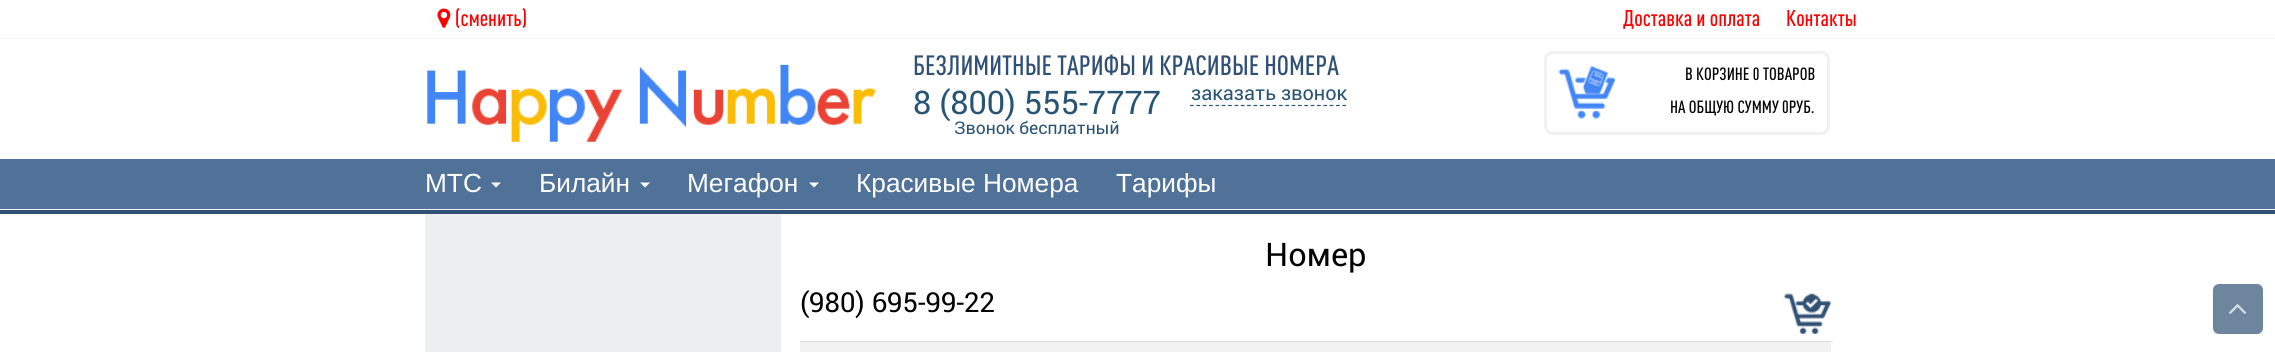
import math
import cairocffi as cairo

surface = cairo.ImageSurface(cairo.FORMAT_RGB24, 2275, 352)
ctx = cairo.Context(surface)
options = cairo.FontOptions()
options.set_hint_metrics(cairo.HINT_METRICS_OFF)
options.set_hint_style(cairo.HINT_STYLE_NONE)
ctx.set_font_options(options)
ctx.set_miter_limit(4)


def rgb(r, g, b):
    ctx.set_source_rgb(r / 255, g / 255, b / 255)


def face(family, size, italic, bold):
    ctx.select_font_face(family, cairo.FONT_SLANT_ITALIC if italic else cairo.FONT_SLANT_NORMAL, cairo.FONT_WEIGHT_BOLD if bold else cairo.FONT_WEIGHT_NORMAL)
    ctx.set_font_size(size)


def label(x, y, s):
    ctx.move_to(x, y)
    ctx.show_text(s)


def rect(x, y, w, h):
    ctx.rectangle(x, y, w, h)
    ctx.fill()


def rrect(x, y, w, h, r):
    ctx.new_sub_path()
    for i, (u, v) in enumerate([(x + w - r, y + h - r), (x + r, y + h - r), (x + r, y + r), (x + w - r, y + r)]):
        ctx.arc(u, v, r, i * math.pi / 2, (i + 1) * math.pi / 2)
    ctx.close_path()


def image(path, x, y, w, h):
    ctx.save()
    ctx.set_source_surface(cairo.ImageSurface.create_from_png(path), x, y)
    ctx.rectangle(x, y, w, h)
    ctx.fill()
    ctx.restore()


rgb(255, 255, 255)
ctx.paint()
rgb(48, 80, 117)
rect(0, 210, 2275, 4)
rgb(241, 241, 241)
rect(0, 38, 2275, 1)
image('image0.png', 437, 8, 14, 20)
face('DIN Medium', 22.5, 0, 0)
rgb(255, 0, 0)
label(455, 26, '(сменить)')
label(1623, 26, 'Доставка и оплата')
label(1786, 26, 'Контакты')
rgb(241, 241, 241)
rect(0, 209, 2275, 1)
image('image1.png', 427, 64, 448, 78)
face('DIN Medium', 27.5, 0, 0)
rgb(48, 80, 117)
label(913, 75, 'БЕЗЛИМИТНЫЕ ТАРИФЫ И КРАСИВЫЕ НОМЕРА')
face('Roboto', 32.5, 0, 0)
rgb(40, 84, 115)
label(913, 114, '8 (800) 555-7777')
face('Roboto', 17.5, 0, 0)
label(954, 134, 'Звонок бесплатный')
face('Roboto', 20, 0, 0)
label(1191, 100, 'заказать звонок')
ctx.new_path()
ctx.move_to(1190, 105.5)
ctx.line_to(1346, 105.5)
ctx.set_line_width(1.2)
ctx.set_dash([3.75, 2.6])
ctx.stroke()
rrect(1545.5, 52.5, 283, 81, 7.5)
rgb(241, 241, 241)
ctx.set_line_width(3)
ctx.set_dash([])
ctx.stroke()
image('image2.png', 1558, 66, 57, 53)
face('DIN Medium', 17.5, 0, 0)
rgb(0, 0, 0)
label(1685, 80, 'В КОРЗИНЕ 0 ТОВАРОВ')
label(1670, 113, 'НА ОБЩУЮ СУММУ 0РУБ.')
rgb(80, 114, 153)
rect(0, 159, 2275, 50)
face('Liberation Sans', 26.25, 0, 0)
rgb(255, 255, 255)
label(425, 192, 'МТС')
ctx.new_path()
ctx.move_to(491, 182.5)
ctx.line_to(501, 182.5)
ctx.line_to(496, 187.5)
ctx.close_path()
ctx.fill()
label(539, 192, 'Билайн')
ctx.new_path()
ctx.move_to(640, 182.5)
ctx.line_to(650, 182.5)
ctx.line_to(645, 187.5)
ctx.close_path()
ctx.fill()
label(687, 192, 'Мегафон')
ctx.new_path()
ctx.move_to(809, 182.5)
ctx.line_to(819, 182.5)
ctx.line_to(814, 187.5)
ctx.close_path()
ctx.fill()
label(856, 192, 'Красивые Номера')
label(1116, 192, 'Тарифы')
rgb(237, 238, 240)
rect(425, 214, 356, 138)
face('Roboto', 32.5, 0, 0)
rgb(0, 0, 0)
label(1265, 266, 'Номер')
face('Roboto', 27.5, 0, 0)
label(800, 312, '(980) 695-99-22')
image('image3.png', 1783, 293, 49, 42)
rgb(242, 242, 242)
rect(800, 342, 1031, 10)
rgb(221, 221, 221)
rect(800, 341, 1033, 1)
rgb(110, 133, 158)
rrect(2213, 284, 50, 50, 6)
ctx.fill()
image('image4.png', 2228, 304, 19, 10)
surface.write_to_png('render.png')
